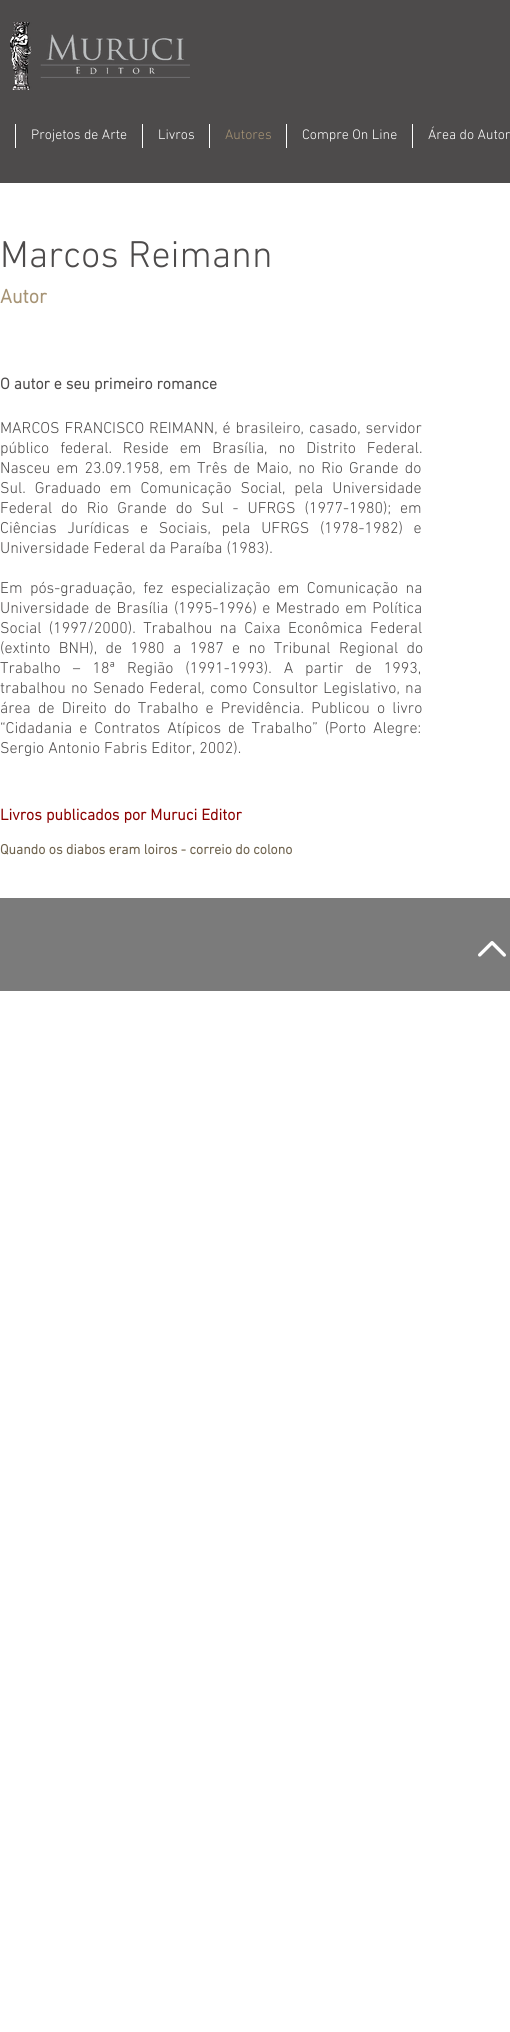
import math
import cairocffi as cairo

surface = cairo.ImageSurface(cairo.FORMAT_RGB24, 510, 2032)
ctx = cairo.Context(surface)
options = cairo.FontOptions()
options.set_hint_metrics(cairo.HINT_METRICS_OFF)
options.set_hint_style(cairo.HINT_STYLE_NONE)
ctx.set_font_options(options)
ctx.set_miter_limit(4)


def rgb(r, g, b):
    ctx.set_source_rgb(r / 255, g / 255, b / 255)


def face(family, size, italic, bold):
    ctx.select_font_face(family, cairo.FONT_SLANT_ITALIC if italic else cairo.FONT_SLANT_NORMAL, cairo.FONT_WEIGHT_BOLD if bold else cairo.FONT_WEIGHT_NORMAL)
    ctx.set_font_size(size)


def label(x, y, s):
    ctx.move_to(x, y)
    ctx.show_text(s)


def tracked(x, y, s, letter, word):
    ctx.move_to(x, y)
    for ch in s:
        ctx.show_text(ch)
        ctx.rel_move_to(letter + word * (ch == ' '), 0)


def rect(x, y, w, h):
    ctx.rectangle(x, y, w, h)
    ctx.fill()


def image(path, x, y, w, h):
    ctx.save()
    ctx.set_source_surface(cairo.ImageSurface.create_from_png(path), x, y)
    ctx.rectangle(x, y, w, h)
    ctx.fill()
    ctx.restore()


rgb(255, 255, 255)
ctx.paint()
rgb(77, 75, 75)
rect(0, 0, 510, 183)
image('image0.png', 10, 22, 180, 68)
rgb(255, 255, 255)
rect(15, 124, 1, 24)
face('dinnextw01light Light', 14, 0, 0)
label(31, 139, 'Projetos de Arte')
rect(142, 124, 1, 24)
label(158, 139, 'Livros')
rect(209, 124, 1, 24)
rgb(166, 147, 116)
label(225, 139, 'Autores')
rgb(255, 255, 255)
rect(286, 124, 1, 24)
label(302, 139, 'Compre On Line')
rect(412, 124, 1, 24)
label(428, 139, 'Área do Autor')
face('dinnextw01light Light', 38, 0, 0)
rgb(77, 75, 75)
label(0, 267, 'Marcos Reimann')
face('dinnextw01light', 20, 0, 1)
rgb(166, 147, 116)
label(0, 303, 'Autor')
face('dinnextw01light', 16, 0, 1)
rgb(77, 75, 75)
label(0, 389, 'O autor e seu primeiro romance')
face('dinnextw01light Light', 16, 0, 0)
tracked(0, 433, 'MARCOS FRANCISCO REIMANN, é brasileiro, casado, servidor', 0, 1)
tracked(0, 453, 'público federal. Reside em Brasília, no Distrito Federal.', 0, 7)
tracked(0, 473, 'Nasceu em 23.09.1958, em Três de Maio, no Rio Grande do', 0, 2.25)
tracked(0, 493, 'Sul. Graduado em Comunicação Social, pela Universidade', 0, 5)
tracked(0, 513, 'Federal do Rio Grande do Sul - UFRGS (1977-1980); em', 0, 5)
tracked(0, 533, 'Ciências Jurídicas e Sociais, pela UFRGS (1978-1982) e', 0, 6.75)
label(0, 553, 'Universidade Federal da Paraíba (1983).')
tracked(0, 593, 'Em pós-graduação, fez especialização em Comunicação na', 0, 3.5)
tracked(0, 613, 'Universidade de Brasília (1995-1996) e Mestrado em Política', 0, 1.5)
tracked(0, 633, 'Social (1997/2000). Trabalhou na Caixa Econômica Federal', 0, 3.5)
tracked(0, 653, '(extinto BNH), de 1980 a 1987 e no Tribunal Regional do', 0, 4.5)
tracked(0, 673, 'Trabalho – 18ª Região (1991-1993). A partir de 1993,', 0, 8)
tracked(0, 693, 'trabalhou no Senado Federal, como Consultor Legislativo, na', 0, 1.25)
tracked(0, 713, 'área de Direito do Trabalho e Previdência. Publicou o livro', 0, 3.25)
tracked(0, 733, '“Cidadania e Contratos Atípicos de Trabalho” (Porto Alegre:', 0, 3)
label(0, 753, 'Sergio Antonio Fabris Editor, 2002).')
face('dinnextw01light', 16, 0, 1)
rgb(139, 0, 0)
label(0, 820, 'Livros publicados por Muruci Editor')
face('dinnextw01light', 14, 0, 1)
rgb(110, 98, 77)
label(0, 854, 'Quando os diabos eram loiros - correio do colono')
rgb(123, 123, 123)
rect(0, 898, 510, 93)
image('image1.png', 478, 941, 28, 16)
surface.write_to_png('render.png')
